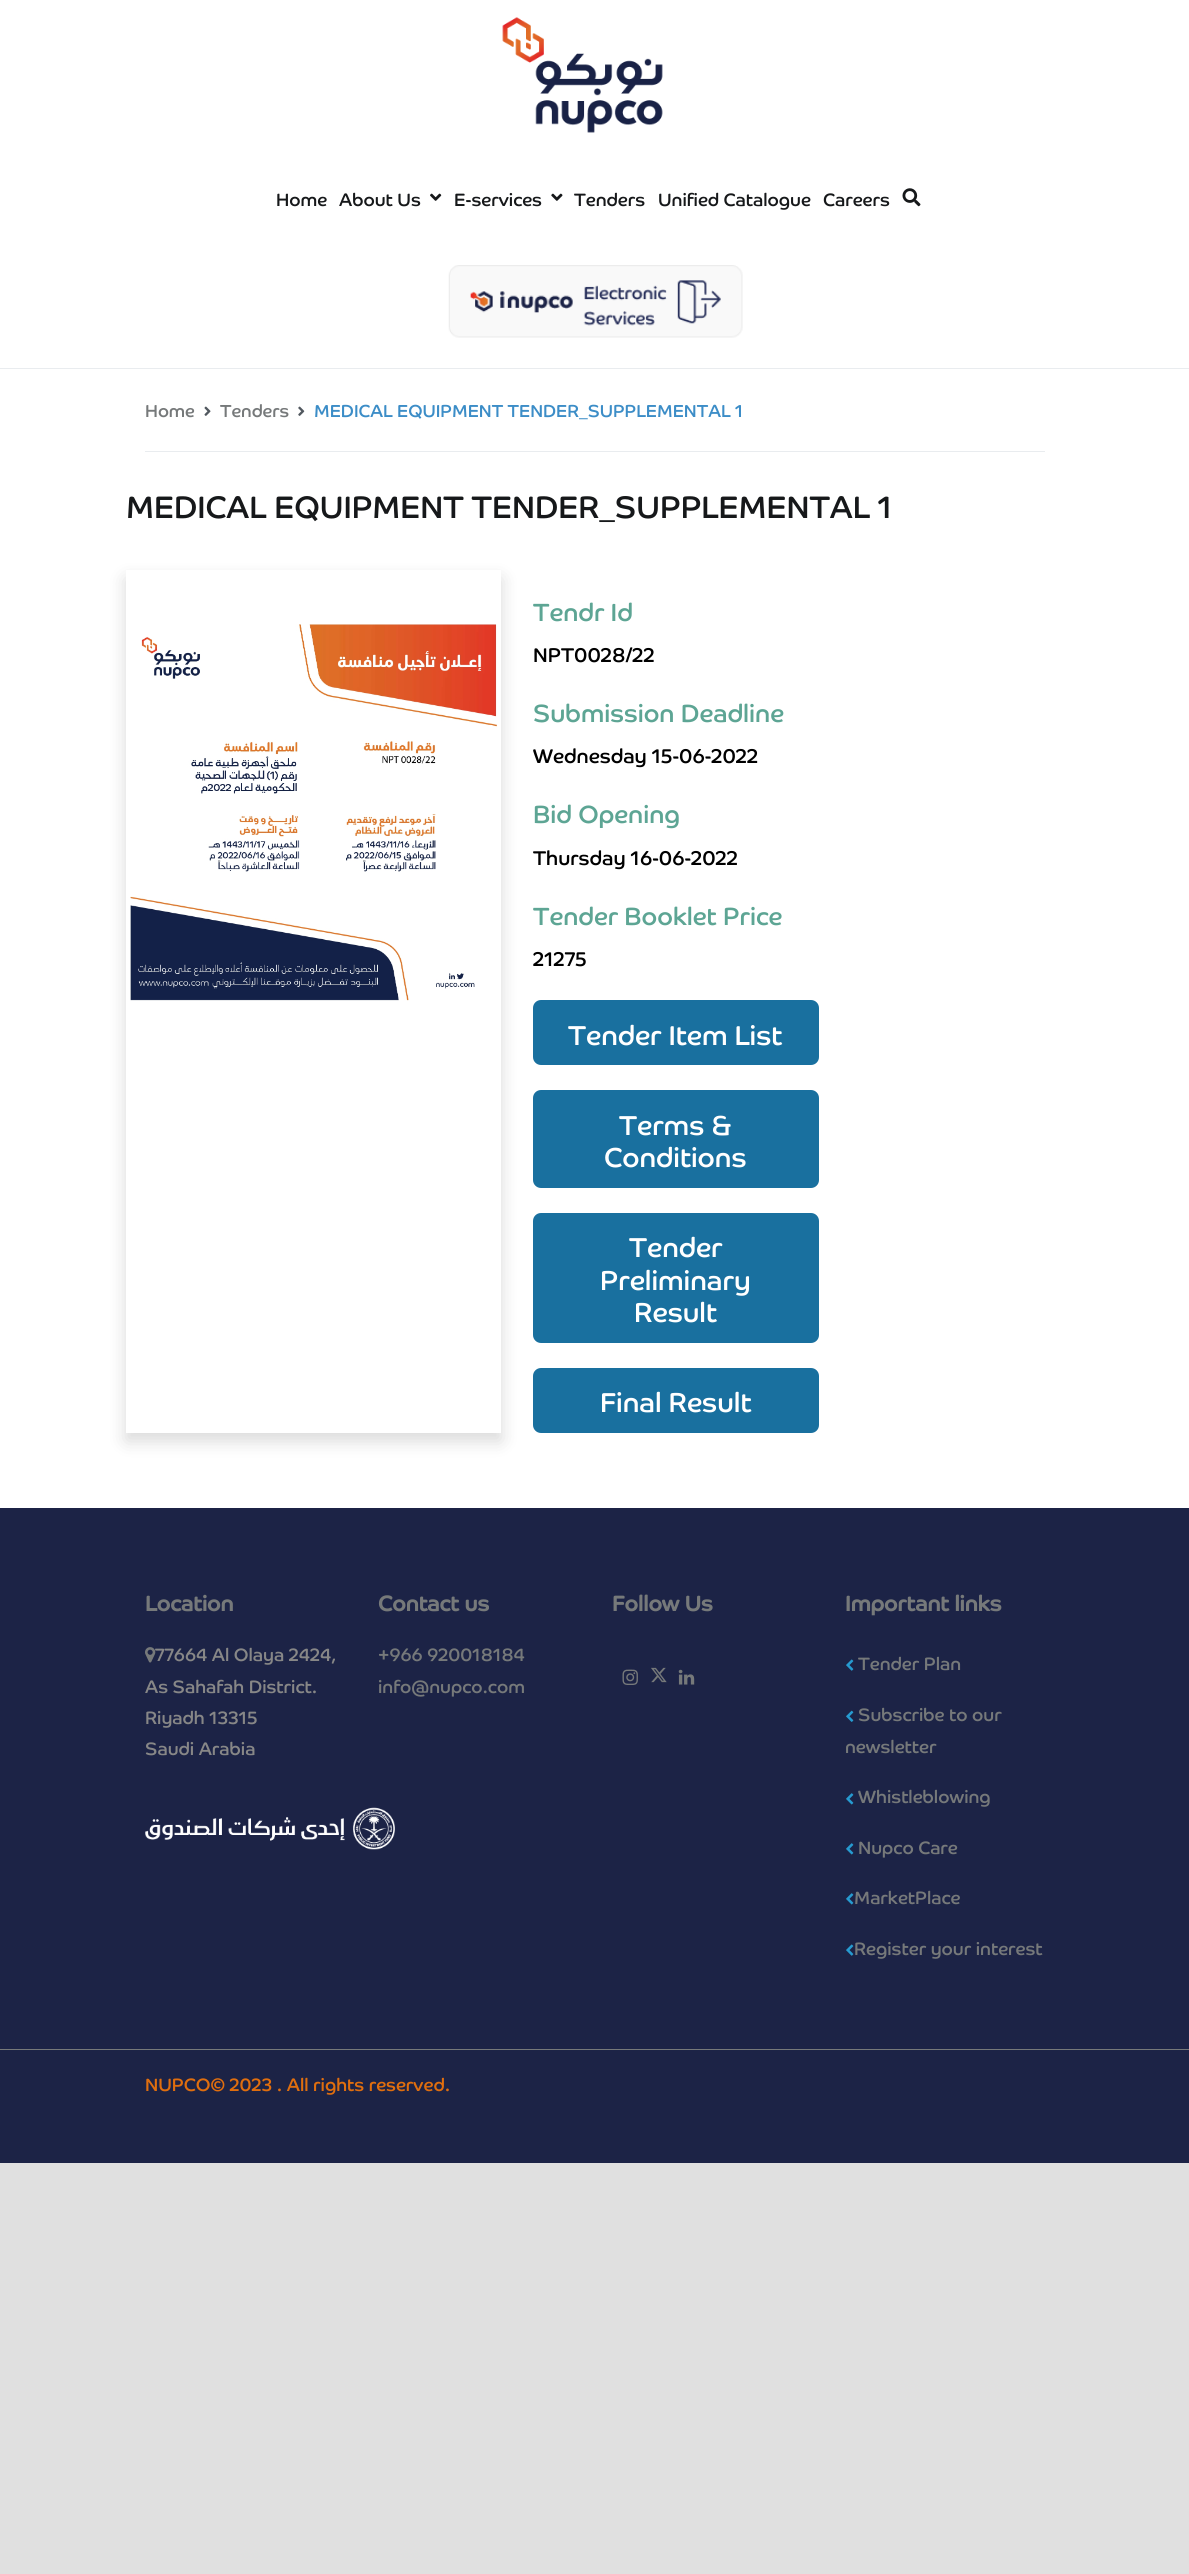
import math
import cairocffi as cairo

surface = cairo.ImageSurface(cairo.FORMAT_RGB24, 1189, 2574)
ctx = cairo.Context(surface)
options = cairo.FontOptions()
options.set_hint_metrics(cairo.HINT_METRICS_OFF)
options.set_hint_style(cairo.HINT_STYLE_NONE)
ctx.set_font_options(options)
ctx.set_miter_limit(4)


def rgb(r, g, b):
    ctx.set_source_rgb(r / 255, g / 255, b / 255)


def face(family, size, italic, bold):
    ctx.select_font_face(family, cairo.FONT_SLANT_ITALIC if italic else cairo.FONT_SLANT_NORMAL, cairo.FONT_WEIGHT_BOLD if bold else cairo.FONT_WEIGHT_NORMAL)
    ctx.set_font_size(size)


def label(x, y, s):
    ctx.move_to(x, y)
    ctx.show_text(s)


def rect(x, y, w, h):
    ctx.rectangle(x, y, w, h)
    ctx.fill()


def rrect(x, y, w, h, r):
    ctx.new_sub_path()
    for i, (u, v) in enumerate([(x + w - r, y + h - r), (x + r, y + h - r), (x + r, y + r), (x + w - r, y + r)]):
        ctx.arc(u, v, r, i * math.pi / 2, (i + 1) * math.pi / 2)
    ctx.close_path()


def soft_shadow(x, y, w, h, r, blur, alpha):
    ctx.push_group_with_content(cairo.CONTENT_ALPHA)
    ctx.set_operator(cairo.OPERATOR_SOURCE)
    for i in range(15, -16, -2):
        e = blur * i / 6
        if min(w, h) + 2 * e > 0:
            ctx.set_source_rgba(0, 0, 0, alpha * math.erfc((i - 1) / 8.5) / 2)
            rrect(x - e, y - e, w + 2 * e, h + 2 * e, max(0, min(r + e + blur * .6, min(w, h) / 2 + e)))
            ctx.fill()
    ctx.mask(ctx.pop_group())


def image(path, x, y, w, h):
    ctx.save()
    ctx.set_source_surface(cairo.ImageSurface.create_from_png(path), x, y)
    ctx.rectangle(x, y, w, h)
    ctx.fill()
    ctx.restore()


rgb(224, 224, 224)
ctx.paint()
rgb(255, 255, 255)
rect(0, 0, 1189, 1508)
rgb(233, 236, 239)
rect(0, 368, 1189, 1)
image('image0.png', 502, 17, 161, 116)
face('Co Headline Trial', 18, 0, 0)
rgb(22, 24, 26)
label(276, 206, 'Home')
label(339, 206, 'About Us')
image('image1.png', 430, 193, 12, 8)
label(454, 206, 'E-services')
image('image2.png', 551, 193, 12, 8)
label(574, 206, 'Tenders')
label(658, 206, 'Unified Catalogue')
label(823, 206, 'Careers')
image('image3.png', 902, 188, 19, 19)
image('image4.png', 448, 265, 295, 73)
rgb(233, 236, 239)
rect(145, 451, 900, 1)
face('Co Headline Trial', 17.5, 0, 0)
rgb(118, 121, 122)
label(145, 417, 'Home')
image('image5.png', 204, 406, 7, 10)
label(220, 417, 'Tenders')
image('image6.png', 298, 406, 7, 10)
rgb(60, 141, 199)
label(314, 417, 'MEDICAL EQUIPMENT TENDER_SUPPLEMENTAL 1')
face('Co Headline Trial', 31.25, 0, 0)
rgb(22, 24, 26)
label(126, 518, 'MEDICAL EQUIPMENT TENDER_SUPPLEMENTAL 1')
ctx.save()
ctx.set_fill_rule(cairo.FILL_RULE_EVEN_ODD)
ctx.new_path()
ctx.move_to(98, 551)
ctx.line_to(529, 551)
ctx.line_to(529, 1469)
ctx.line_to(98, 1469)
ctx.close_path()
ctx.move_to(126, 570)
ctx.line_to(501, 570)
ctx.line_to(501, 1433)
ctx.line_to(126, 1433)
ctx.close_path()
ctx.clip()
rgb(0, 0, 0)
soft_shadow(126, 579, 375, 862, 0, 9, 0.15)
ctx.restore()
image('image7.png', 130, 624, 368, 377)
face('Co Headline Trial', 25, 0, 0)
rgb(93, 165, 148)
label(533, 621, 'Tendr Id')
face('Co Headline Trial', 20, 0, 0)
rgb(0, 0, 0)
label(533, 662, 'NPT0028/22')
face('Co Headline Trial', 25, 0, 0)
rgb(93, 165, 148)
label(533, 722, 'Submission Deadline')
face('Co Headline Trial', 20, 0, 0)
rgb(0, 0, 0)
label(533, 763, 'Wednesday 15-06-2022')
face('Co Headline Trial', 25, 0, 0)
rgb(93, 165, 148)
label(533, 823, 'Bid Opening')
face('Co Headline Trial', 20, 0, 0)
rgb(0, 0, 0)
label(533, 865, 'Thursday 16-06-2022')
face('Co Headline Trial', 25, 0, 0)
rgb(93, 165, 148)
label(533, 925, 'Tender Booklet Price')
face('Co Headline Trial', 20, 0, 0)
rgb(0, 0, 0)
label(533, 966, '21275')
rgb(25, 112, 159)
rrect(533, 1000, 286, 65, 8)
ctx.fill()
face('Co Headline Trial', 27.5, 0, 0)
rgb(255, 255, 255)
label(568, 1045, 'Tender Item List')
rgb(25, 112, 159)
rrect(533, 1090, 286, 98, 8)
ctx.fill()
rgb(255, 255, 255)
label(619, 1135, 'Terms &')
label(604, 1167, 'Conditions')
rgb(25, 112, 159)
rrect(533, 1213, 286, 130, 8)
ctx.fill()
rgb(255, 255, 255)
label(629, 1257, 'Tender')
label(600, 1290, 'Preliminary')
label(634, 1322, 'Result')
rgb(25, 112, 159)
rrect(533, 1368, 286, 65, 8)
ctx.fill()
rgb(255, 255, 255)
label(600, 1412, 'Final Result')
rgb(28, 35, 70)
rect(0, 1508, 1189, 541)
face('Co Headline Trial', 21.5, 0, 1)
rgb(118, 121, 122)
label(145, 1611, 'Location')
image('image8.png', 145, 1647, 11, 16)
face('Co Headline Trial', 18, 0, 0)
rgb(135, 135, 135)
label(155, 1661, '77664 Al Olaya 2424,')
label(145, 1693, 'As Sahafah District.')
label(145, 1724, 'Riyadh 13315')
label(145, 1755, 'Saudi Arabia')
image('image9.png', 145, 1807, 250, 43)
face('Co Headline Trial', 21.5, 0, 1)
rgb(118, 121, 122)
label(378, 1611, 'Contact us')
face('Co Headline Trial', 18, 0, 0)
label(378, 1661, '+966 920018184')
label(378, 1693, 'info@nupco.com')
face('Co Headline Trial', 21.5, 0, 1)
label(612, 1611, 'Follow Us')
image('image10.png', 622, 1669, 16, 16)
image('image11.png', 651, 1667, 16, 16)
image('image12.png', 678, 1669, 17, 16)
label(845, 1611, 'Important links')
image('image13.png', 846, 1659, 8, 12)
face('Co Headline Trial', 18, 0, 0)
label(858, 1670, 'Tender Plan')
image('image14.png', 846, 1710, 8, 12)
label(858, 1721, 'Subscribe to our')
label(845, 1753, 'newsletter')
image('image15.png', 846, 1793, 8, 12)
label(858, 1803, 'Whistleblowing')
image('image15.png', 846, 1843, 8, 12)
label(858, 1854, 'Nupco Care')
image('image15.png', 846, 1893, 8, 12)
label(854, 1904, 'MarketPlace')
image('image13.png', 846, 1944, 8, 12)
label(854, 1955, 'Register your interest')
rgb(28, 35, 70)
rect(0, 2050, 1189, 113)
rgb(118, 121, 122)
rect(0, 2049, 1189, 1)
rgb(224, 110, 14)
label(145, 2091, 'NUPCO© 2023 . All rights reserved.')
surface.write_to_png('render.png')
